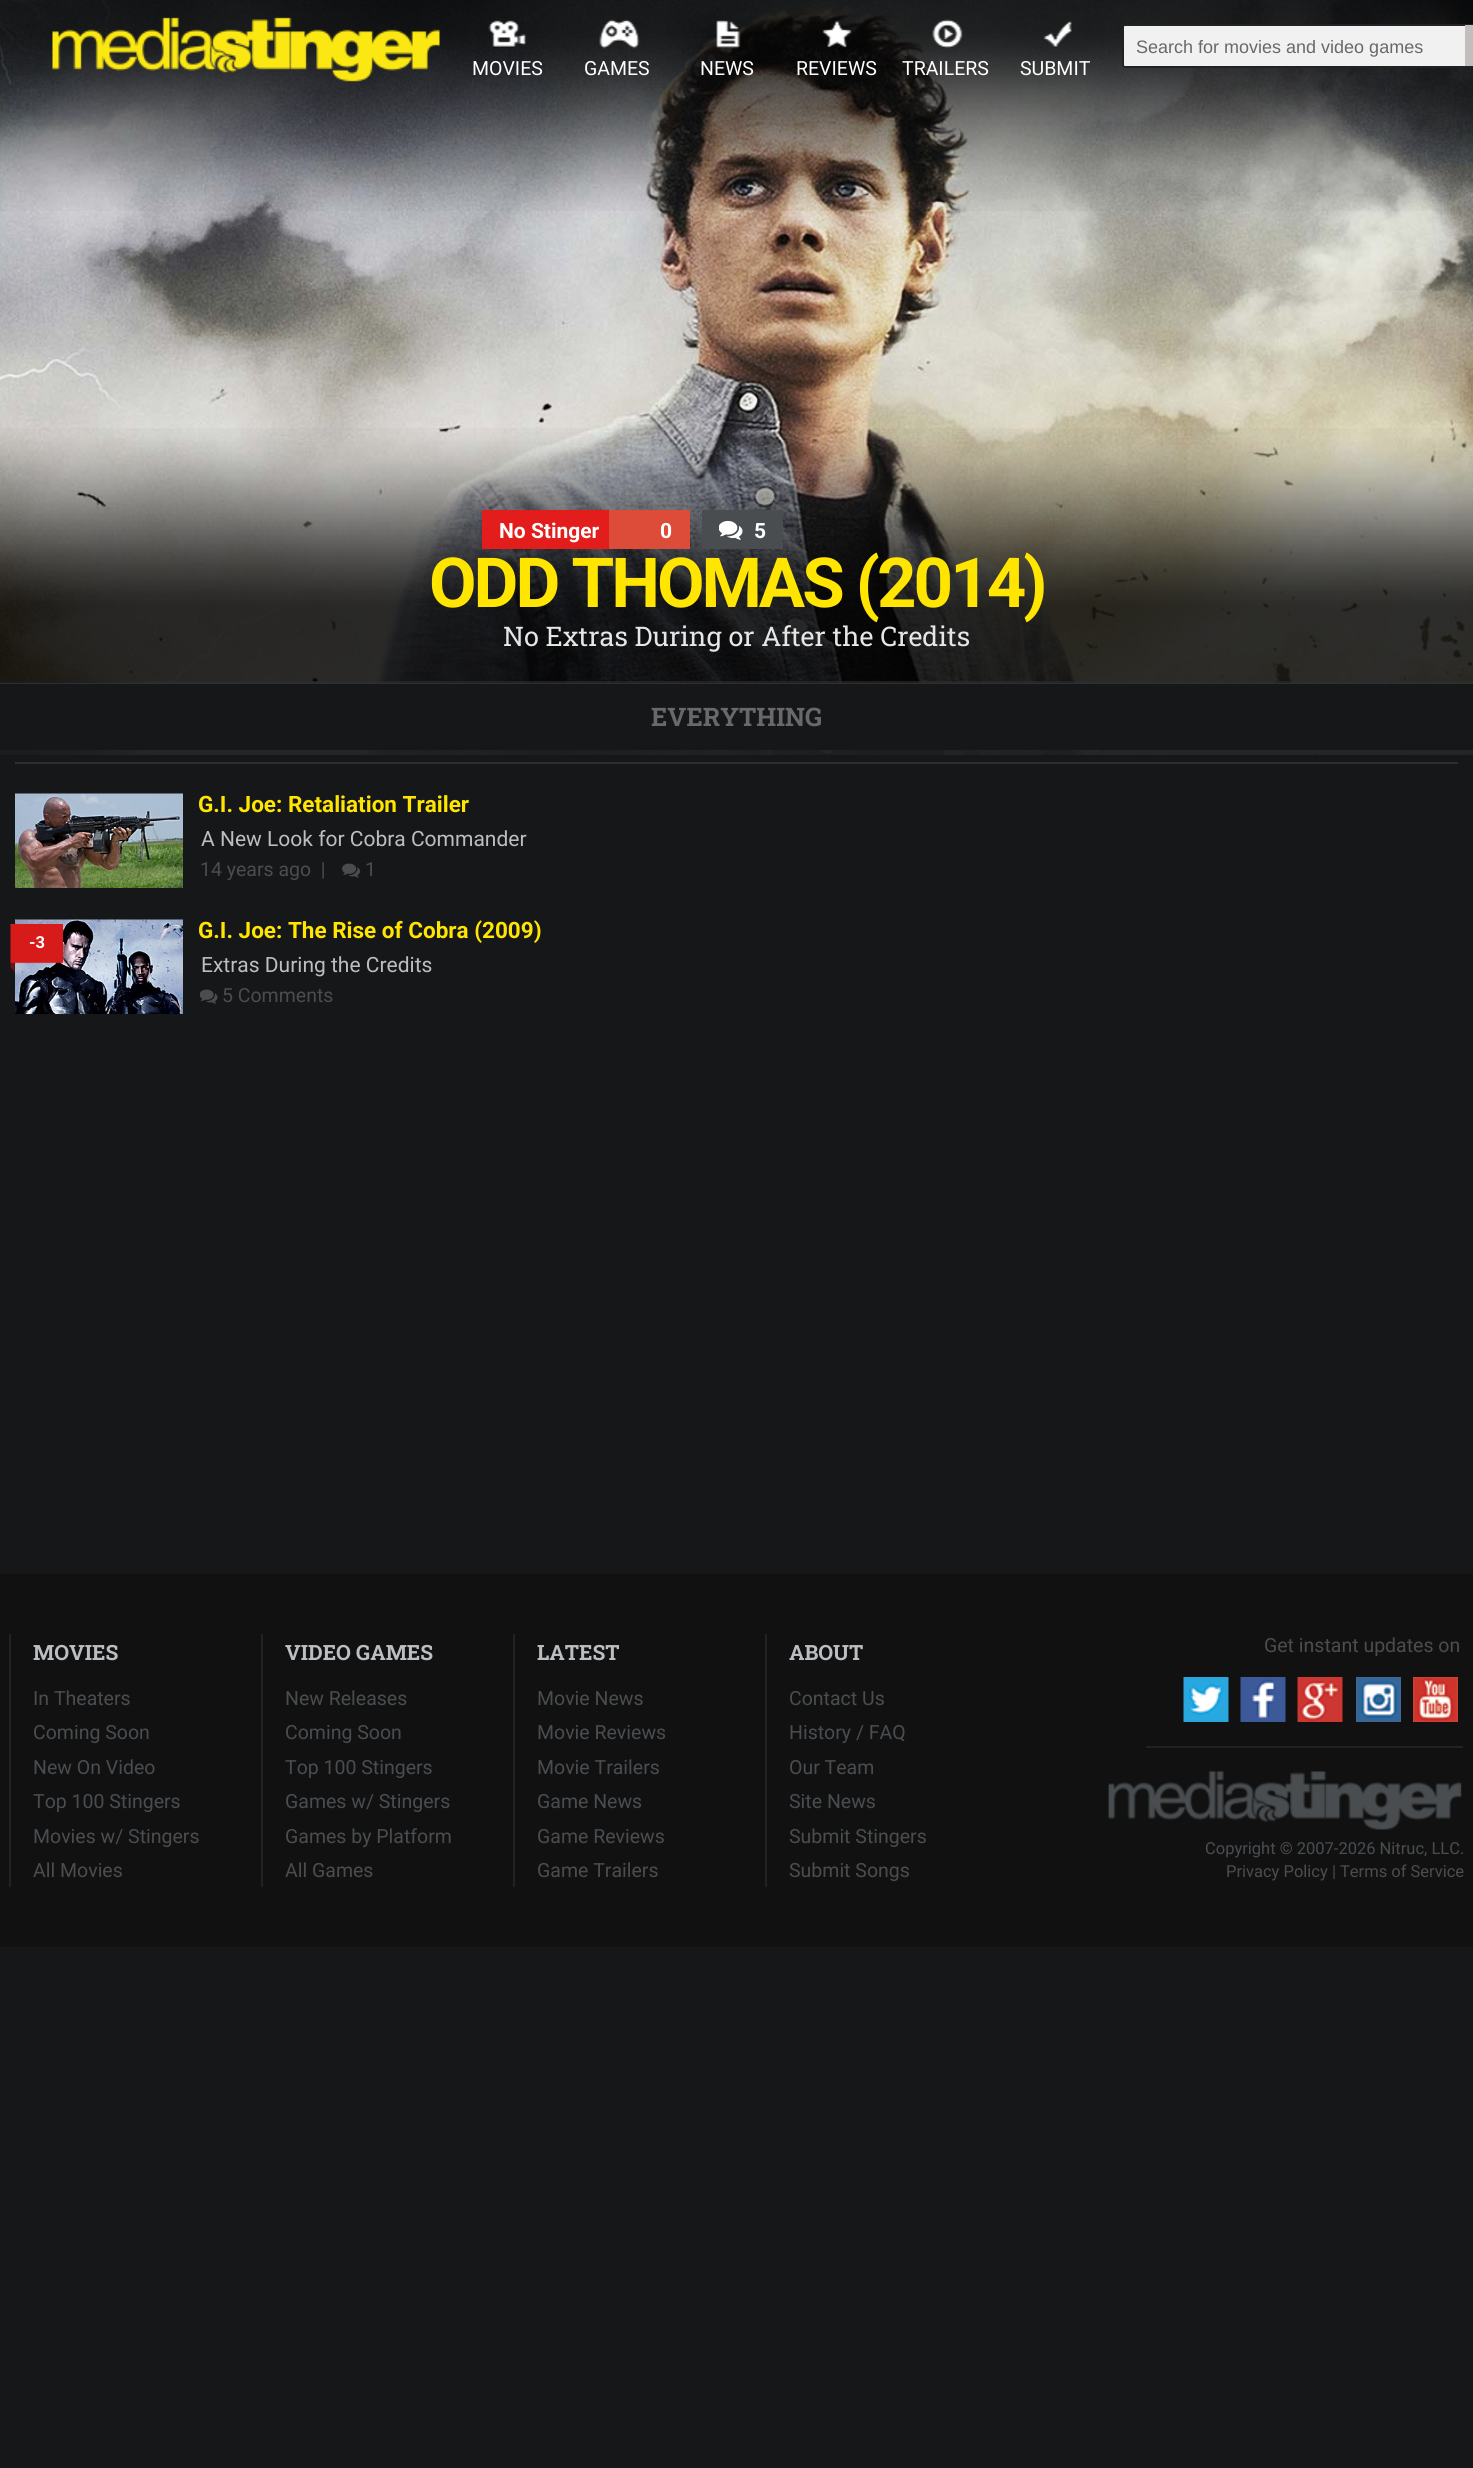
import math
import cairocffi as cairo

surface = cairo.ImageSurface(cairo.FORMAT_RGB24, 1473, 2468)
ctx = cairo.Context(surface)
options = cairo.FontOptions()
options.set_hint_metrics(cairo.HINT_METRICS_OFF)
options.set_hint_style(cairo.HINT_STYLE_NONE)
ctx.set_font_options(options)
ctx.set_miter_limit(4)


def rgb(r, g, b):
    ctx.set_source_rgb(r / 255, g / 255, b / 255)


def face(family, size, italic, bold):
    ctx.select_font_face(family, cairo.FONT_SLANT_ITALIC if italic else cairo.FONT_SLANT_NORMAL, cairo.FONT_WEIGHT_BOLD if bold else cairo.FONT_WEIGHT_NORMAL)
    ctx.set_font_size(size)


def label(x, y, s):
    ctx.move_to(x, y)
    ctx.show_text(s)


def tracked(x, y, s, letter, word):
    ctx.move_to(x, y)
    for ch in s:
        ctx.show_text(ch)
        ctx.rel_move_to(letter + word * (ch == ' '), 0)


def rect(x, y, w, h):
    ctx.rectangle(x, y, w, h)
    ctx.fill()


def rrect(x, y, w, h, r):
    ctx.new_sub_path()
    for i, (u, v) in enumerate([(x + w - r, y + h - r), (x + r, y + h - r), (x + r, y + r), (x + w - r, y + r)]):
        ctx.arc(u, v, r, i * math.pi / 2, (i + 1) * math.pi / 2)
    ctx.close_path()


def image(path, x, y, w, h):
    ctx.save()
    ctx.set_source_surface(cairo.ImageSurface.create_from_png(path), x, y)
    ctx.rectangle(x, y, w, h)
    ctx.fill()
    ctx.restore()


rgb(22, 23, 24)
ctx.paint()
image('image7.png', 0, 0, 1473, 755)
image('image8.png', 0, 0, 1473, 211)
image('image0.png', 52, 17, 388, 65)
rgb(241, 241, 241)
rrect(1123, 25, 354, 42, 2)
ctx.fill_preserve()
rgb(34, 34, 34)
ctx.stroke()
face('Liberation Sans', 18, 0, 0)
rgb(105, 104, 106)
label(1136, 53, 'Search for movies and video games')
rgb(194, 190, 189)
rect(1465, 25, 8, 41)
image('image1.png', 488, 20, 38, 28)
face('Roboto', 19.5, 0, 0)
rgb(255, 255, 255)
label(472, 75, 'MOVIES')
image('image2.png', 599, 19, 41, 30)
label(584, 75, 'GAMES')
image('image3.png', 716, 20, 25, 29)
label(700, 75, 'NEWS')
image('image4.png', 822, 20, 30, 28)
label(796, 75, 'REVIEWS')
image('image5.png', 932, 19, 31, 30)
label(902, 75, 'TRAILERS')
image('image6.png', 1043, 21, 29, 27)
label(1020, 75, 'SUBMIT')
image('image9.png', 0, 428, 1473, 253)
rgb(227, 28, 28)
rect(482, 510, 127, 39)
face('Roboto', 21, 0, 1)
rgb(255, 255, 255)
label(499, 538, 'No Stinger')
rgb(221, 75, 57)
rect(609, 510, 81, 39)
rgb(255, 255, 255)
label(660, 538, '0')
rgb(73, 77, 80)
rect(702, 510, 81, 39)
image('image10.png', 719, 520, 24, 20)
rgb(255, 255, 255)
label(754, 538, '5')
face('Roboto', 69, 0, 1)
rgb(255, 229, 0)
tracked(429, 607, 'ODD THOMAS (2014)', -3, 0)
face('Roboto Slab', 27, 0, 0)
rgb(228, 230, 231)
label(503, 646, 'No Extras During or After the Credits')
image('image11.png', 0, 681, 148, 74)
image('image12.png', 0, 681, 1473, 74)
rgb(46, 47, 49)
rect(0, 683, 1473, 1)
rgb(22, 23, 24)
rect(0, 684, 1473, 66)
face('Roboto Slab', 25.5, 0, 1)
rgb(105, 104, 106)
label(651, 726, 'EVERYTHING')
rgb(46, 47, 49)
rect(15, 762, 1443, 2)
image('image13.png', 15, 793, 168, 95)
face('Roboto', 22.5, 0, 1)
rgb(255, 229, 0)
label(198, 812, 'G.I. Joe: Retaliation Trailer')
face('Roboto', 21, 0, 0)
rgb(188, 191, 194)
label(201, 846, 'A New Look for Cobra Commander')
face('Roboto', 19.5, 0, 0)
rgb(73, 77, 80)
label(200, 876, '14 years ago  |')
image('image14.png', 342, 863, 18, 15)
label(365, 876, '1')
image('image15.png', 15, 919, 168, 95)
face('Roboto', 22.5, 0, 1)
rgb(255, 229, 0)
label(198, 938, 'G.I. Joe: The Rise of Cobra (2009)')
image('image16.png', 10, 924, 53, 48)
face('Roboto', 16.5, 0, 1)
rgb(255, 255, 255)
label(29, 948, '-3')
face('Roboto', 21, 0, 0)
rgb(188, 191, 194)
label(201, 972, 'Extras During the Credits')
image('image17.png', 200, 989, 18, 15)
face('Roboto', 19.5, 0, 0)
rgb(73, 77, 80)
label(222, 1002, '5 Comments')
rgb(17, 17, 17)
rect(0, 1574, 1473, 373)
rgb(34, 34, 34)
rect(9, 1634, 2, 253)
face('Roboto Slab', 21, 0, 1)
rgb(188, 191, 194)
label(33, 1660, 'MOVIES')
face('Roboto', 19.5, 0, 0)
rgb(73, 77, 80)
label(33, 1705, 'In Theaters')
label(33, 1739, 'Coming Soon')
label(33, 1774, 'New On Video')
label(33, 1808, 'Top 100 Stingers')
label(33, 1843, 'Movies w/ Stingers')
label(33, 1877, 'All Movies')
rgb(34, 34, 34)
rect(261, 1634, 2, 253)
face('Roboto Slab', 21, 0, 1)
rgb(188, 191, 194)
label(285, 1660, 'VIDEO GAMES')
face('Roboto', 19.5, 0, 0)
rgb(73, 77, 80)
label(285, 1705, 'New Releases')
label(285, 1739, 'Coming Soon')
label(285, 1774, 'Top 100 Stingers')
label(285, 1808, 'Games w/ Stingers')
label(285, 1843, 'Games by Platform')
label(285, 1877, 'All Games')
rgb(34, 34, 34)
rect(513, 1634, 2, 253)
face('Roboto Slab', 21, 0, 1)
rgb(188, 191, 194)
label(537, 1660, 'LATEST')
face('Roboto', 19.5, 0, 0)
rgb(73, 77, 80)
label(537, 1705, 'Movie News')
label(537, 1739, 'Movie Reviews')
label(537, 1774, 'Movie Trailers')
label(537, 1808, 'Game News')
label(537, 1843, 'Game Reviews')
label(537, 1877, 'Game Trailers')
rgb(34, 34, 34)
rect(765, 1634, 2, 253)
face('Roboto Slab', 21, 0, 1)
rgb(188, 191, 194)
label(789, 1660, 'ABOUT')
face('Roboto', 19.5, 0, 0)
rgb(73, 77, 80)
label(789, 1705, 'Contact Us')
label(789, 1739, 'History / FAQ')
label(789, 1774, 'Our Team')
label(789, 1808, 'Site News')
label(789, 1843, 'Submit Stingers')
label(789, 1877, 'Submit Songs')
label(1264, 1652, 'Get instant updates on')
rgb(34, 34, 34)
rect(1146, 1746, 317, 2)
image('image18.png', 1183, 1677, 46, 45)
image('image19.png', 1240, 1677, 46, 45)
image('image20.png', 1297, 1677, 46, 45)
image('image21.png', 1356, 1677, 45, 45)
image('image22.png', 1413, 1677, 45, 45)
image('image23.png', 1108, 1771, 354, 59)
face('Roboto', 16.5, 0, 0)
rgb(73, 77, 80)
label(1205, 1854, 'Copyright © 2007-2026 Nitruc, LLC.')
label(1226, 1877, 'Privacy Policy | Terms of Service')
surface.write_to_png('render.png')
